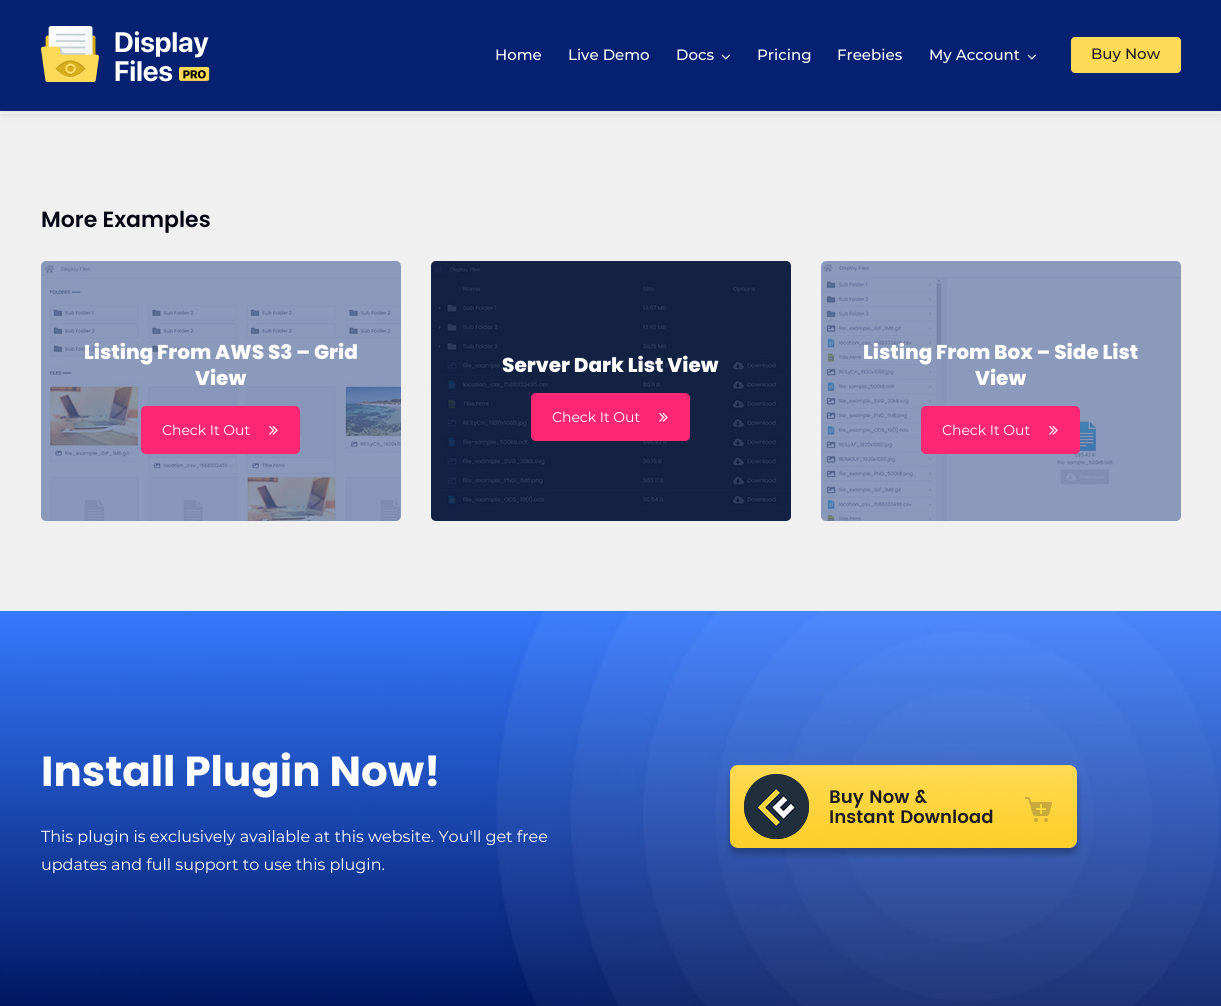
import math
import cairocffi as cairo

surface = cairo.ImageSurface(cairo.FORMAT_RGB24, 1221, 1006)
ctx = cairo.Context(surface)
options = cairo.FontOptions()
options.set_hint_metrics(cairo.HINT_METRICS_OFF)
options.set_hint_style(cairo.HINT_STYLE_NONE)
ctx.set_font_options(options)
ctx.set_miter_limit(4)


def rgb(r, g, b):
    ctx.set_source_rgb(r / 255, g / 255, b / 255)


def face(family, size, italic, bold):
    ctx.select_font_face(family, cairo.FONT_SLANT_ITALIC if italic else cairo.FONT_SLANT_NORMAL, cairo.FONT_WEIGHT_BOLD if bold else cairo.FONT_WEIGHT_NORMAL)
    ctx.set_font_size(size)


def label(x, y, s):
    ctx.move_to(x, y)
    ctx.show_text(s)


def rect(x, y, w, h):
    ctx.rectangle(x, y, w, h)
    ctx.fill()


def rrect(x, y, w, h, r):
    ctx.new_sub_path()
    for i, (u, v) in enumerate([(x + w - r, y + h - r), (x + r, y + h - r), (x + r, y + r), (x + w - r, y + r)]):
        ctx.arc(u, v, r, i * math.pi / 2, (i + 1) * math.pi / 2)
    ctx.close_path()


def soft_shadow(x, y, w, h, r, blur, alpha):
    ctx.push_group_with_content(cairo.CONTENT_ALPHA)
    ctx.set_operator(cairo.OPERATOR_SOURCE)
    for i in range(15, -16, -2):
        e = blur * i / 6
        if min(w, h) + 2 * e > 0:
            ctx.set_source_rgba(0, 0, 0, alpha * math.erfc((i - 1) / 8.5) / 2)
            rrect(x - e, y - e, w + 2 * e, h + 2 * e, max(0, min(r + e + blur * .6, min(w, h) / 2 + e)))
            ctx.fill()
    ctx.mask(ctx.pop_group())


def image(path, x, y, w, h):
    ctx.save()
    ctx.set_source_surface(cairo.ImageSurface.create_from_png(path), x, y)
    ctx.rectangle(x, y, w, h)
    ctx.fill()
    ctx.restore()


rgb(255, 255, 255)
ctx.paint()
rgb(240, 240, 240)
rect(0, 114, 1221, 497)
rgb(0, 0, 0)
soft_shadow(0, 0, 1221, 111, 0, 5, 0.2)
rgb(6, 33, 113)
rect(0, 0, 1221, 111)
image('image0.png', 41, 26, 169, 56)
face('Montserrat Medium', 15, 0, 0)
rgb(255, 255, 255)
label(495, 60, 'Home')
label(568, 60, 'Live Demo')
label(676, 60, 'Docs')
image('image1.png', 721, 54, 9, 6)
label(757, 60, 'Pricing')
label(837, 60, 'Freebies')
label(929, 60, 'My Account')
image('image1.png', 1027, 54, 9, 6)
rgb(255, 218, 86)
rrect(1071, 37, 110, 36, 4)
ctx.fill()
rgb(28, 28, 31)
label(1091, 59, 'Buy Now')
face('Poppins SemiBold', 22, 0, 0)
rgb(3, 7, 18)
label(41, 227, 'More Examples')
image('image2.png', 41, 261, 360, 260)
ctx.set_source_rgba(0.055, 0.165, 0.443, 0.48)
rrect(41, 261, 360, 260, 5)
ctx.fill()
face('Poppins ExtraBold', 20, 0, 0)
rgb(255, 255, 255)
label(84, 359, 'Listing From AWS S3 – Grid')
label(195, 385, 'View')
rgb(255, 39, 115)
rrect(141, 406, 159, 48, 5)
ctx.fill()
face('Montserrat', 14, 0, 0)
rgb(255, 255, 255)
label(162, 435, 'Check It Out')
image('image3.png', 269, 426, 9, 9)
image('image4.png', 431, 261, 360, 260)
ctx.set_source_rgba(0.055, 0.165, 0.443, 0.48)
rrect(431, 261, 360, 260, 5)
ctx.fill()
face('Poppins ExtraBold', 20, 0, 0)
rgb(255, 255, 255)
label(502, 372, 'Server Dark List View')
rgb(255, 39, 115)
rrect(531, 393, 159, 48, 5)
ctx.fill()
face('Montserrat', 14, 0, 0)
rgb(255, 255, 255)
label(552, 422, 'Check It Out')
image('image3.png', 659, 413, 9, 9)
image('image5.png', 821, 261, 360, 260)
ctx.set_source_rgba(0.055, 0.165, 0.443, 0.48)
rrect(821, 261, 360, 260, 5)
ctx.fill()
face('Poppins ExtraBold', 20, 0, 0)
rgb(255, 255, 255)
label(863, 359, 'Listing From Box – Side List')
label(975, 385, 'View')
rgb(255, 39, 115)
rrect(921, 406, 159, 48, 5)
ctx.fill()
face('Montserrat', 14, 0, 0)
rgb(255, 255, 255)
label(942, 435, 'Check It Out')
image('image3.png', 1049, 426, 9, 9)
image('image6.png', 0, 611, 1221, 395)
face('Poppins', 42, 0, 1)
label(41, 786, 'Install Plugin Now!')
face('Montserrat', 16, 0, 0)
label(41, 842, 'This plugin is exclusively available at this website. You\'ll get free')
label(41, 870, 'updates and full support to use this plugin.')
image('image7.png', 725, 765, 357, 94)
surface.write_to_png('render.png')
